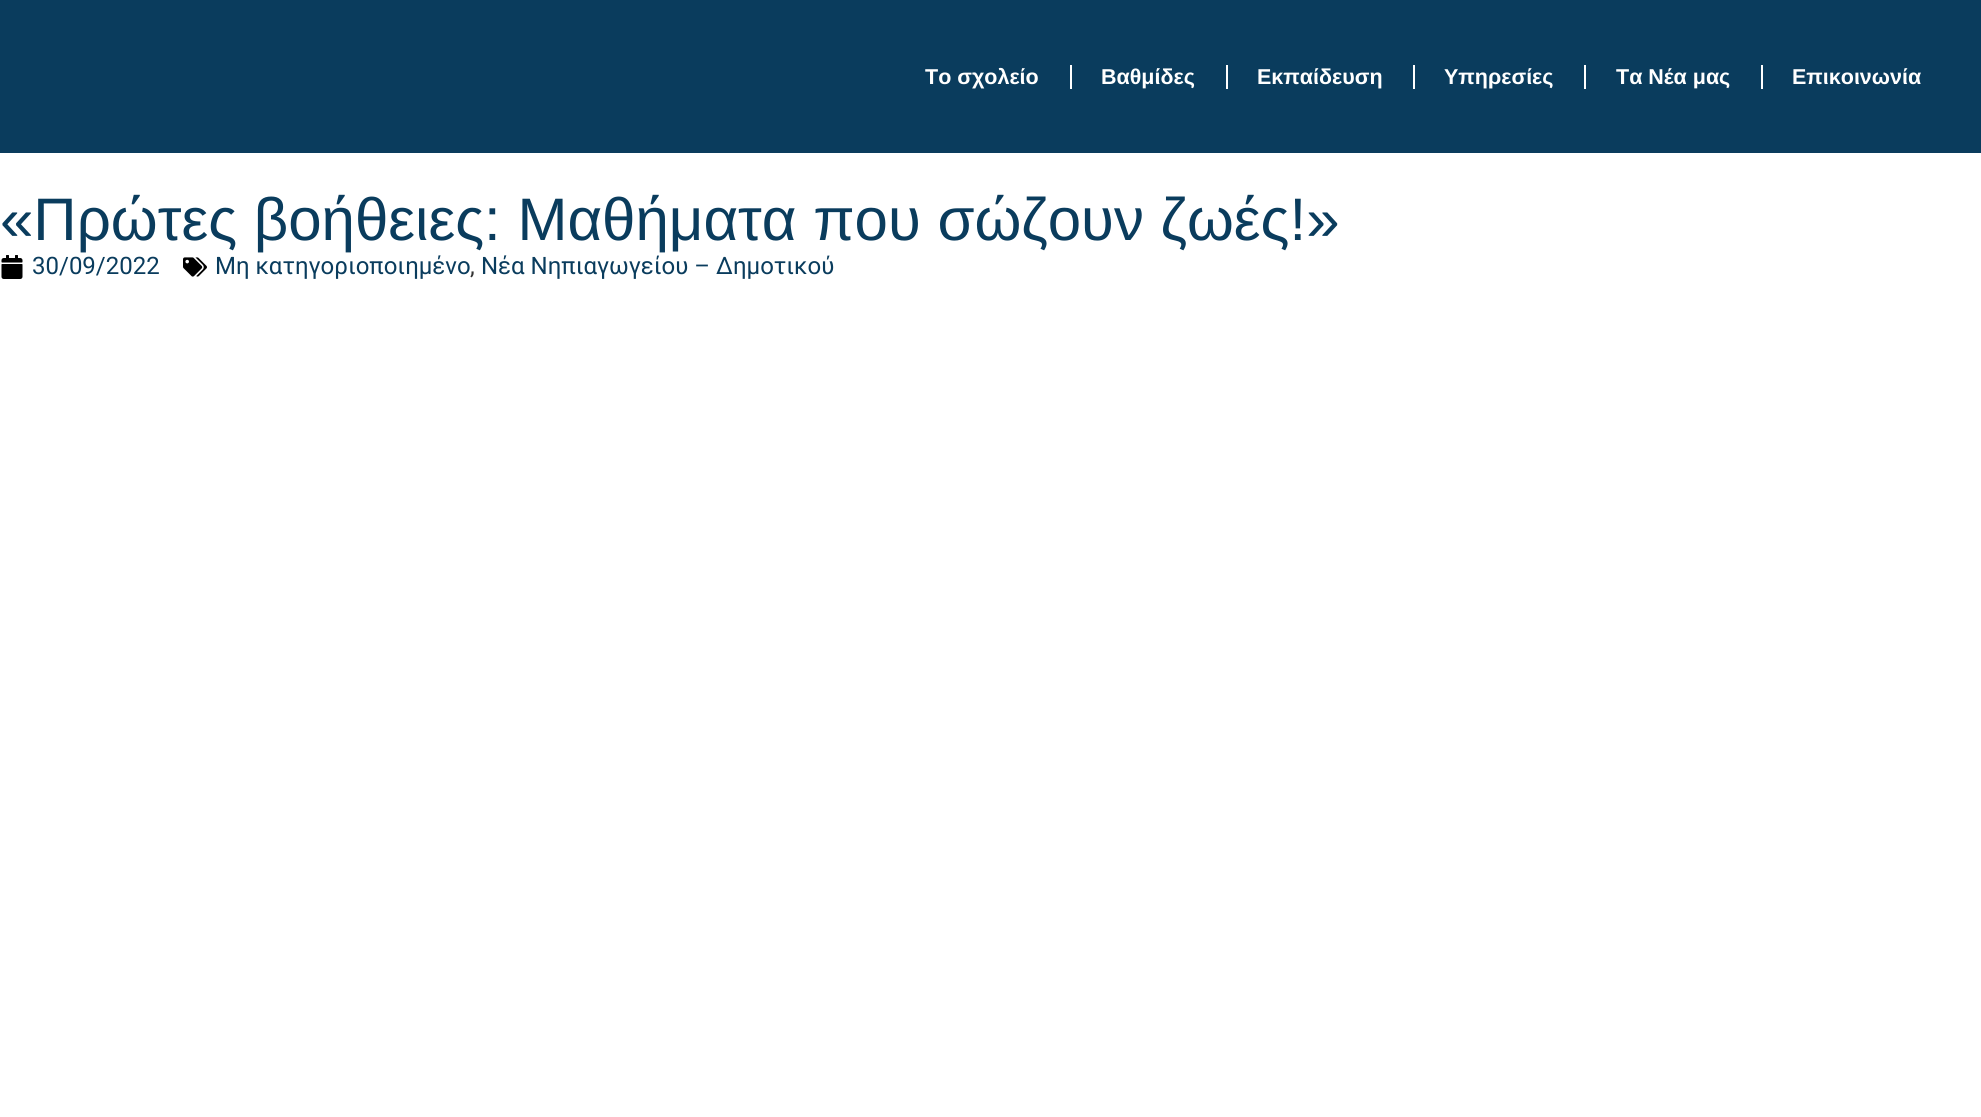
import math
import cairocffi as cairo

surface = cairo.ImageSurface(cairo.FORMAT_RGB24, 1981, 1117)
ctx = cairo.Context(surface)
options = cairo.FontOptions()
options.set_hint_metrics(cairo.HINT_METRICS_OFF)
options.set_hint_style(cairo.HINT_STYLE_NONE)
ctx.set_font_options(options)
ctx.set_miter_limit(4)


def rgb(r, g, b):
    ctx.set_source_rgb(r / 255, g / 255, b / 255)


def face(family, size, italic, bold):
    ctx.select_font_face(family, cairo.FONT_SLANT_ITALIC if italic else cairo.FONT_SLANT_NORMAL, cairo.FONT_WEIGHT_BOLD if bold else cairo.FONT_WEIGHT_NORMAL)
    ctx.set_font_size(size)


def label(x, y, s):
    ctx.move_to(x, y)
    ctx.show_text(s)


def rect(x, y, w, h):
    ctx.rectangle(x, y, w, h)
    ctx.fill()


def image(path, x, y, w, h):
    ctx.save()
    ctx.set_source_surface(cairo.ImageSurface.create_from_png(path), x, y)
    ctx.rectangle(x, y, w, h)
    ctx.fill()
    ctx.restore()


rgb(255, 255, 255)
ctx.paint()
rgb(10, 60, 93)
rect(0, 0, 1981, 153)
face('Liberation Sans', 21.5, 0, 1)
rgb(255, 255, 255)
label(925, 84, 'Το σχολείο')
rect(1070, 65, 2, 24)
label(1101, 84, 'Βαθμίδες')
rect(1226, 65, 2, 24)
label(1257, 84, 'Εκπαίδευση')
rect(1413, 65, 2, 24)
label(1444, 84, 'Υπηρεσίες')
rect(1584, 65, 2, 24)
label(1616, 84, 'Τα Νέα μας')
rect(1761, 65, 2, 24)
label(1792, 84, 'Επικοινωνία')
face('Liberation Sans', 60, 0, 0)
rgb(10, 60, 93)
label(0, 240, '«Πρώτες βοήθειες: Μαθήματα που σώζουν ζωές!»')
image('image0.png', 1, 255, 22, 24)
face('Roboto', 24, 0, 0)
label(32, 274, '30/09/2022')
image('image1.png', 183, 257, 24, 20)
label(215, 274, 'Μη κατηγοριοποιημένο')
rgb(51, 51, 51)
label(470, 274, ',')
rgb(10, 60, 93)
label(481, 274, 'Νέα Νηπιαγωγείου – Δημοτικού')
surface.write_to_png('render.png')
